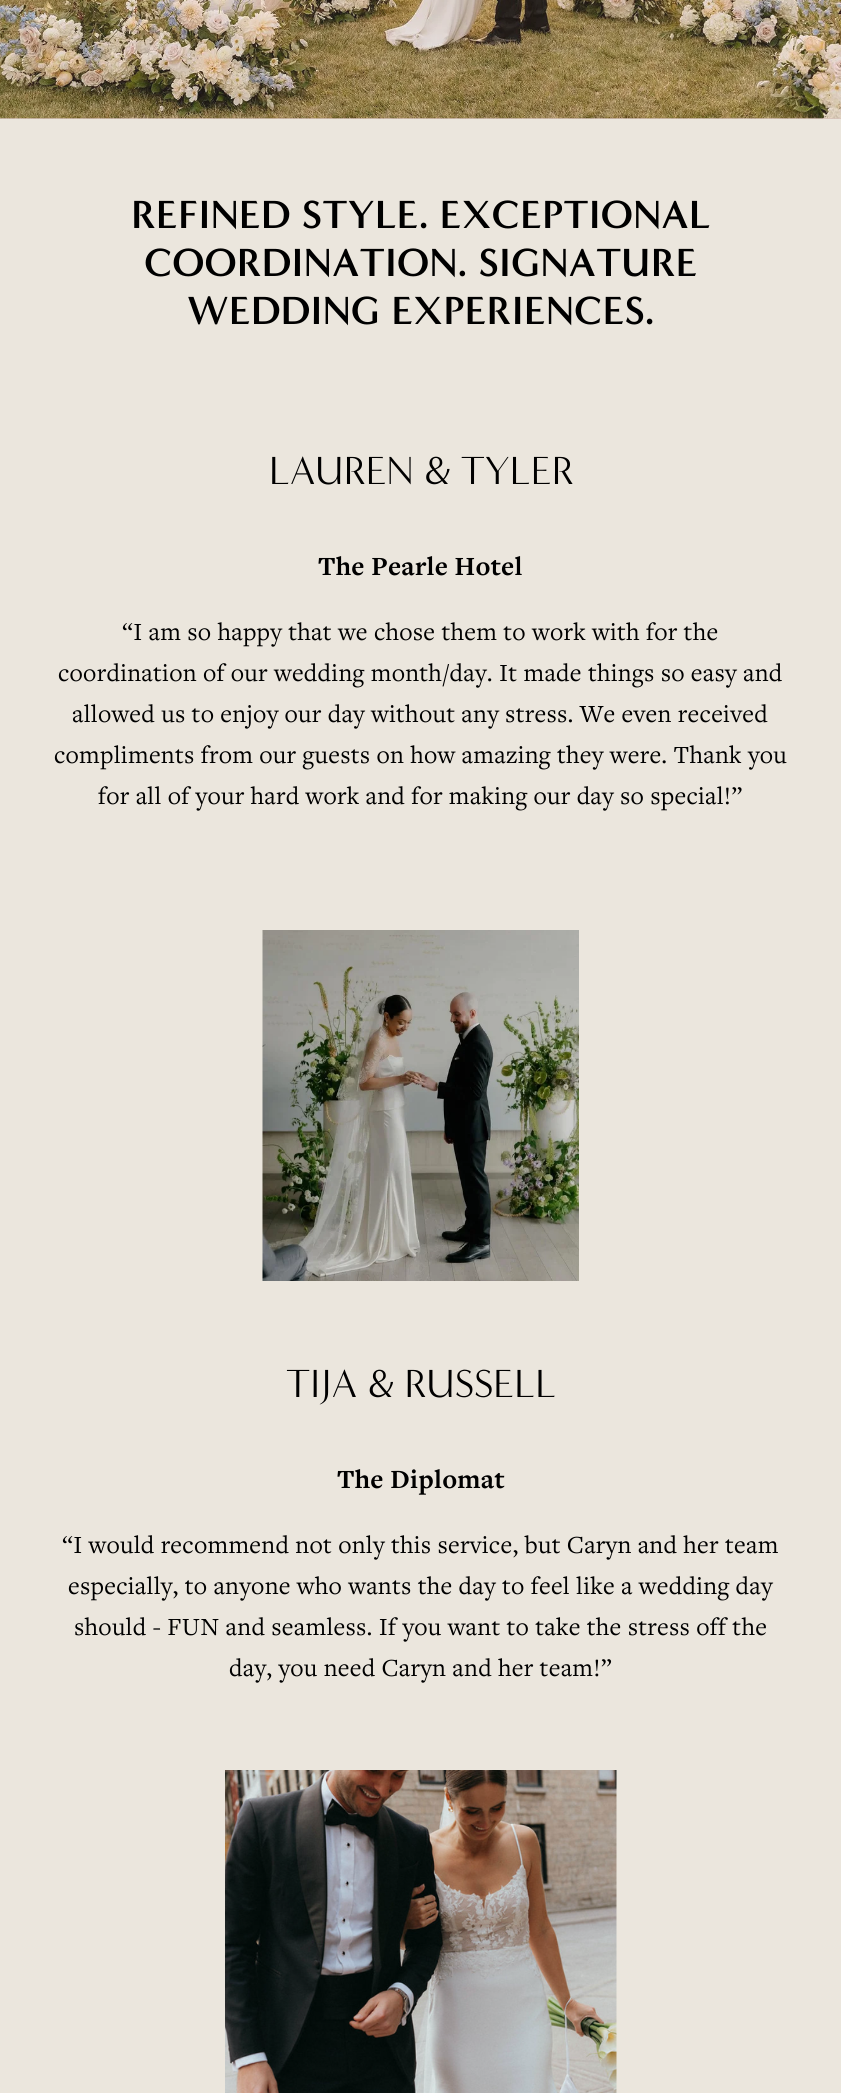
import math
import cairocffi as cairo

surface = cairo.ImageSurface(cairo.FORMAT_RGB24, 841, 2093)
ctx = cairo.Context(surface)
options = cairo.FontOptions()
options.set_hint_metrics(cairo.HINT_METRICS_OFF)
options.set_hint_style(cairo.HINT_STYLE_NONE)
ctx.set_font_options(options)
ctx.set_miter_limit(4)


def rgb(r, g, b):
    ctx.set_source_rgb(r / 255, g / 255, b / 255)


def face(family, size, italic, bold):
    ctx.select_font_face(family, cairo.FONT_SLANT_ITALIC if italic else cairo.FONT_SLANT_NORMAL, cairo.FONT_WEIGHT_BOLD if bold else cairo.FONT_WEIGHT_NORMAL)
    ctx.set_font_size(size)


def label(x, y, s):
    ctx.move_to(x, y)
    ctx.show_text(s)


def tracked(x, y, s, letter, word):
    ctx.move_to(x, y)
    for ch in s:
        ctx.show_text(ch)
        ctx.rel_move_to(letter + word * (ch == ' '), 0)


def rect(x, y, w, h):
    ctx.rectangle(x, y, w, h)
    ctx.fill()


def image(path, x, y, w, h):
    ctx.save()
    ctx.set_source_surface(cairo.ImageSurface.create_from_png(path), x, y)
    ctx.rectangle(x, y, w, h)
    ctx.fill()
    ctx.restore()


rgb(214, 194, 185)
ctx.paint()
image('image0.png', 0, 0, 841, 119)
rgb(235, 230, 221)
rect(0, 119, 841, 1974)
face('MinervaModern', 40.25, 0, 1)
rgb(0, 0, 0)
label(131, 228, 'REFINED STYLE. EXCEPTIONAL')
label(144, 276, 'COORDINATION. SIGNATURE')
label(187, 324, 'WEDDING EXPERIENCES.')
face('MinervaModern', 40.25, 0, 0)
label(269, 484, 'LAUREN & TYLER')
face('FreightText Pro', 27.25, 0, 1)
tracked(318, 575, 'The Pearle Hotel', 0.27, 0)
face('FreightText Pro', 25.6, 0, 0)
tracked(122, 640, '“I am so happy that we chose them to work with for the', 0.27, 0)
tracked(58, 681, 'coordination of our wedding month/day. It made things so easy and', 0.27, 0)
tracked(72, 722, 'allowed us to enjoy our day without any stress. We even received', 0.27, 0)
tracked(54, 763, 'compliments from our guests on how amazing they were. Thank you', 0.27, 0)
tracked(98, 804, 'for all of your hard work and for making our day so special!”', 0.27, 0)
image('image1.png', 262, 930, 317, 351)
face('MinervaModern', 40.25, 0, 0)
label(286, 1397, 'TIJA & RUSSELL')
face('FreightText Pro', 27.25, 0, 1)
tracked(337, 1488, 'The Diplomat', 0.27, 0)
face('FreightText Pro', 25.6, 0, 0)
tracked(62, 1553, '“I would recommend not only this service, but Caryn and her team', 0.27, 0)
tracked(68, 1594, 'especially, to anyone who wants the day to feel like a wedding day', 0.27, 0)
tracked(74, 1635, 'should - FUN and seamless. If you want to take the stress off the', 0.27, 0)
tracked(229, 1676, 'day, you need Caryn and her team!”', 0.27, 0)
image('image2.png', 225, 1770, 392, 323)
surface.write_to_png('render.png')
